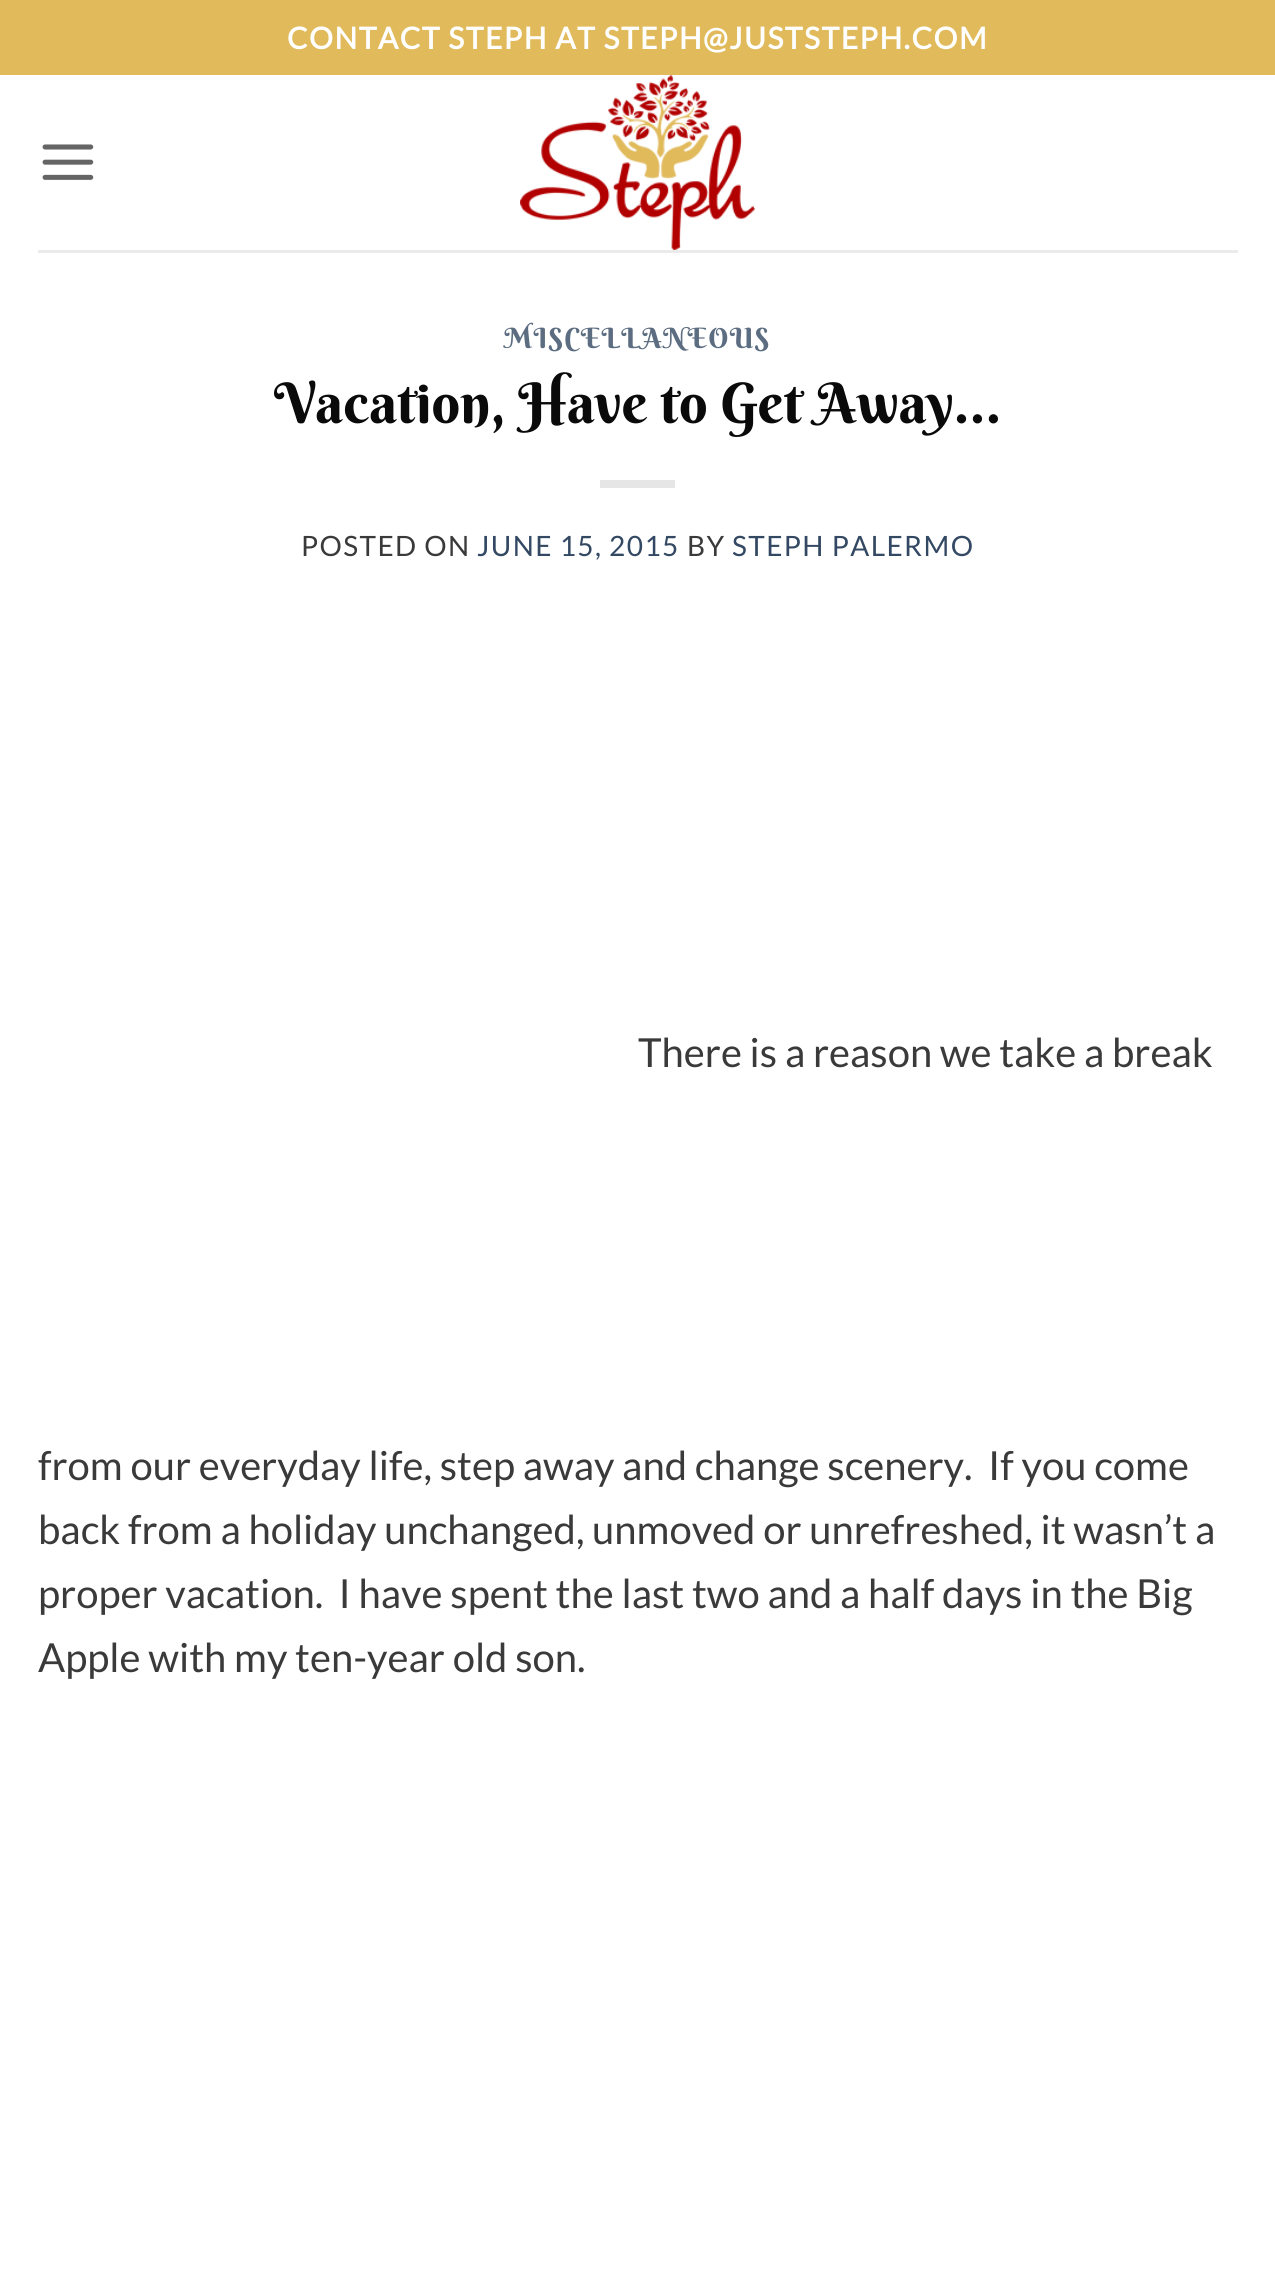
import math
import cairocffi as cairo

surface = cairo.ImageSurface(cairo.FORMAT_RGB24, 1275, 2277)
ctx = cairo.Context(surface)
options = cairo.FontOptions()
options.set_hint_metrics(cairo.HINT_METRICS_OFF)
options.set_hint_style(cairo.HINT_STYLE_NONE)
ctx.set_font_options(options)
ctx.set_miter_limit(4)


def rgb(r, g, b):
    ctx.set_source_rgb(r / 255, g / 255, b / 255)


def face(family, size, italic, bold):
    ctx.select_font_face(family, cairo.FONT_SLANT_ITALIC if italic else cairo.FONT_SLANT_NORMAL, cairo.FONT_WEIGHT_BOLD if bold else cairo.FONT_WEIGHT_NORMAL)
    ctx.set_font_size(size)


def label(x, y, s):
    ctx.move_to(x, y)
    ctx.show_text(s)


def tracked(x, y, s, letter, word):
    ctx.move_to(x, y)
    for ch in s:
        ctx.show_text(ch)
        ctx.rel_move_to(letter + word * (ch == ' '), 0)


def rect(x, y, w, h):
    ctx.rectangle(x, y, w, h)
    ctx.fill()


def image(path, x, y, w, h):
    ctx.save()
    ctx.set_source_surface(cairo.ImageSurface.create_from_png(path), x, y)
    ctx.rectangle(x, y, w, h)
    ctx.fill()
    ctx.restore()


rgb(255, 255, 255)
ctx.paint()
rgb(225, 186, 91)
rect(0, 0, 1275, 75)
face('Lato', 30, 0, 1)
rgb(255, 255, 255)
tracked(287, 49, 'CONTACT STEPH AT STEPH@JUSTSTEPH.COM', 1.5, 0)
image('image0.png', 42, 144, 52, 36)
image('image1.png', 520, 75, 235, 175)
rgb(235, 235, 235)
rect(38, 250, 1200, 3)
face('Berkshire Swash', 28, 0, 0)
rgb(92, 109, 129)
tracked(504, 348, 'MISCELLANEOUS', 1.4, 0)
face('Berkshire Swash', 56, 0, 0)
rgb(10, 10, 10)
label(274, 423, 'Vacation, Have to Get Away…')
rgb(230, 230, 230)
rect(600, 480, 75, 8)
face('Lato', 28, 0, 0)
rgb(58, 58, 58)
tracked(301, 556, 'POSTED ON', 1.4, 0)
rgb(51, 72, 98)
tracked(477, 556, 'JUNE 15, 2015', 1.4, 0)
rgb(58, 58, 58)
tracked(687, 556, 'BY', 1.4, 0)
rgb(51, 72, 98)
tracked(732, 556, 'STEPH PALERMO', 1.4, 0)
face('Lato', 40, 0, 0)
rgb(58, 58, 58)
label(638, 1067, 'There is a reason we take a break')
label(38, 1480, 'from our everyday life, step away and change scenery.  If you come')
label(38, 1544, 'back from a holiday unchanged, unmoved or unrefreshed, it wasn’t a')
label(38, 1608, 'proper vacation.  I have spent the last two and a half days in the Big')
label(38, 1672, 'Apple with my ten-year old son.')
surface.write_to_png('render.png')
